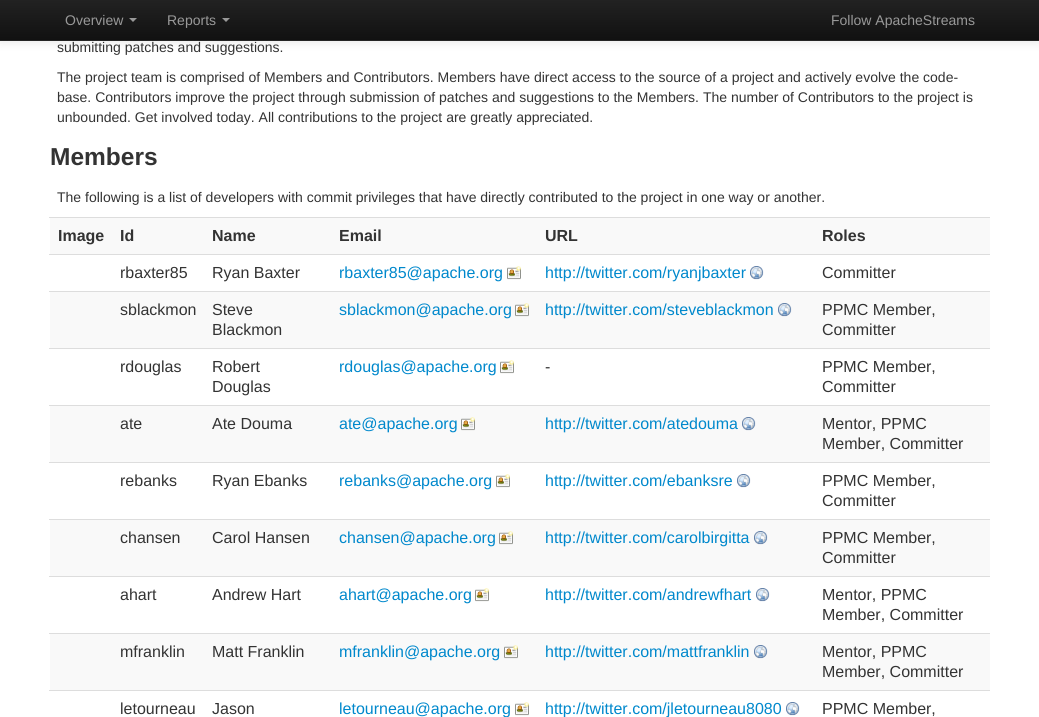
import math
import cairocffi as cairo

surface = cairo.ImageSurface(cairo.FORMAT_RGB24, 1039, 717)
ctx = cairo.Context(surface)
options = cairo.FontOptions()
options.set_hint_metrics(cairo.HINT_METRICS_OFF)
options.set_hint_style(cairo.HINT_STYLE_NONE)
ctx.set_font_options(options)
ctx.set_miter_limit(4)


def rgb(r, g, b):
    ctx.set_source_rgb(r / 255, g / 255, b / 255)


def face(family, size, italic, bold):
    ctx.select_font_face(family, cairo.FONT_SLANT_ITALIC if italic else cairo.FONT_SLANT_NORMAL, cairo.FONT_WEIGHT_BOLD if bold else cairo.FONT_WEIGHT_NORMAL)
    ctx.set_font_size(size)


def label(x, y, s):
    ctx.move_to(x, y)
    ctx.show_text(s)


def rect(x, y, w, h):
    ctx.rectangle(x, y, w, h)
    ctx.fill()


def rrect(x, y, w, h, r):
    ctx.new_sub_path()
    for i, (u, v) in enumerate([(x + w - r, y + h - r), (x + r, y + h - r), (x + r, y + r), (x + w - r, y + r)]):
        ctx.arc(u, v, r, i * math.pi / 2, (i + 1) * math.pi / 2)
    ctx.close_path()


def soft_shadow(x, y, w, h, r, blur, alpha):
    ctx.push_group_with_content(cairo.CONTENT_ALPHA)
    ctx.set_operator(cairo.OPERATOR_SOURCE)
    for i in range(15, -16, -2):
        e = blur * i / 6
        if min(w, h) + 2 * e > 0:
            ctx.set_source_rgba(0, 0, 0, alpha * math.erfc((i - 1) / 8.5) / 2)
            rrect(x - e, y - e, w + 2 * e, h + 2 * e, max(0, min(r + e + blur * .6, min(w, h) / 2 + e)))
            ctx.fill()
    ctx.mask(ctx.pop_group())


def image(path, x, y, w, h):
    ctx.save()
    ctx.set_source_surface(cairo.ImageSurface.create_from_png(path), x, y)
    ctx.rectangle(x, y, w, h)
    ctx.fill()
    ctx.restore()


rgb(255, 255, 255)
ctx.paint()
rgb(0, 0, 0)
soft_shadow(0, 1, 1039, 41, 0, 5, 0.1)
gradient = cairo.LinearGradient(520, 0, 520, 40)
gradient.add_color_stop_rgba(0, 0.133, 0.133, 0.133, 1)
gradient.add_color_stop_rgba(1, 0.067, 0.067, 0.067, 1)
ctx.set_source(gradient)
rect(0, 0, 1039, 40)
rgb(37, 37, 37)
rect(0, 40, 1039, 1)
face('Liberation Sans', 14, 0, 0)
rgb(153, 153, 153)
label(65, 25, 'Overview')
ctx.new_path()
ctx.move_to(129, 18)
ctx.line_to(137, 18)
ctx.line_to(133, 22)
ctx.close_path()
ctx.fill()
label(167, 25, 'Reports')
ctx.new_path()
ctx.move_to(222, 18)
ctx.line_to(230, 18)
ctx.line_to(226, 22)
ctx.close_path()
ctx.fill()
label(831, 25, 'Follow ApacheStreams')
rgb(51, 51, 51)
label(57, 52, 'submitting patches and suggestions.')
label(57, 82, 'The project team is comprised of Members and Contributors. Members have direct access to the source of a project and actively evolve the code-')
label(57, 102, 'base. Contributors improve the project through submission of patches and suggestions to the Members. The number of Contributors to the project is')
label(57, 122, 'unbounded. Get involved today. All contributions to the project are greatly appreciated.')
face('Liberation Sans', 24.5, 0, 1)
label(50, 165, 'Members')
face('Liberation Sans', 14, 0, 0)
label(57, 202, 'The following is a list of developers with commit privileges that have directly contributed to the project in one way or another.')
rgb(249, 249, 249)
rect(50, 218, 940, 36)
face('Liberation Sans', 16, 0, 1)
rgb(51, 51, 51)
label(58, 241, 'Image')
label(120, 241, 'Id')
label(212, 241, 'Name')
label(339, 241, 'Email')
label(545, 241, 'URL')
rgb(221, 221, 221)
rect(49, 217, 941, 1)
rgb(51, 51, 51)
label(822, 241, 'Roles')
face('Liberation Sans', 16, 0, 0)
label(120, 278, 'rbaxter85')
label(212, 278, 'Ryan Baxter')
rgb(0, 136, 204)
label(339, 278, 'rbaxter85@apache.org')
image('image0.png', 507, 266, 14, 14)
label(545, 278, 'http://twitter.com/ryanjbaxter')
image('image1.png', 750, 266, 14, 14)
rgb(221, 221, 221)
rect(49, 254, 941, 1)
rgb(51, 51, 51)
label(822, 278, 'Committer')
rgb(249, 249, 249)
rect(50, 292, 940, 56)
rgb(51, 51, 51)
label(120, 315, 'sblackmon')
label(212, 315, 'Steve')
label(212, 335, 'Blackmon')
rgb(0, 136, 204)
label(339, 315, 'sblackmon@apache.org')
image('image2.png', 515, 303, 14, 14)
label(545, 315, 'http://twitter.com/steveblackmon')
image('image3.png', 778, 303, 14, 14)
rgb(221, 221, 221)
rect(49, 291, 941, 1)
rgb(51, 51, 51)
label(822, 315, 'PPMC Member,')
label(822, 335, 'Committer')
label(120, 372, 'rdouglas')
label(212, 372, 'Robert')
label(212, 392, 'Douglas')
rgb(0, 136, 204)
label(339, 372, 'rdouglas@apache.org')
image('image0.png', 500, 360, 14, 14)
rgb(51, 51, 51)
label(545, 372, '-')
rgb(221, 221, 221)
rect(49, 348, 941, 1)
rgb(51, 51, 51)
label(822, 372, 'PPMC Member,')
label(822, 392, 'Committer')
rgb(249, 249, 249)
rect(50, 406, 940, 56)
rgb(51, 51, 51)
label(120, 429, 'ate')
label(212, 429, 'Ate Douma')
rgb(0, 136, 204)
label(339, 429, 'ate@apache.org')
image('image2.png', 461, 417, 14, 14)
label(545, 429, 'http://twitter.com/atedouma')
image('image3.png', 742, 417, 14, 14)
rgb(221, 221, 221)
rect(49, 405, 941, 1)
rgb(51, 51, 51)
label(822, 429, 'Mentor, PPMC')
label(822, 449, 'Member, Committer')
label(120, 486, 'rebanks')
label(212, 486, 'Ryan Ebanks')
rgb(0, 136, 204)
label(339, 486, 'rebanks@apache.org')
image('image0.png', 496, 474, 14, 14)
label(545, 486, 'http://twitter.com/ebanksre')
image('image1.png', 737, 474, 14, 14)
rgb(221, 221, 221)
rect(49, 462, 941, 1)
rgb(51, 51, 51)
label(822, 486, 'PPMC Member,')
label(822, 506, 'Committer')
rgb(249, 249, 249)
rect(50, 520, 940, 56)
rgb(51, 51, 51)
label(120, 543, 'chansen')
label(212, 543, 'Carol Hansen')
rgb(0, 136, 204)
label(339, 543, 'chansen@apache.org')
image('image2.png', 499, 531, 14, 14)
label(545, 543, 'http://twitter.com/carolbirgitta')
image('image3.png', 754, 531, 14, 14)
rgb(221, 221, 221)
rect(49, 519, 941, 1)
rgb(51, 51, 51)
label(822, 543, 'PPMC Member,')
label(822, 563, 'Committer')
label(120, 600, 'ahart')
label(212, 600, 'Andrew Hart')
rgb(0, 136, 204)
label(339, 600, 'ahart@apache.org')
image('image0.png', 475, 588, 14, 14)
label(545, 600, 'http://twitter.com/andrewfhart')
image('image1.png', 756, 588, 14, 14)
rgb(221, 221, 221)
rect(49, 576, 941, 1)
rgb(51, 51, 51)
label(822, 600, 'Mentor, PPMC')
label(822, 620, 'Member, Committer')
rgb(249, 249, 249)
rect(50, 634, 940, 56)
rgb(51, 51, 51)
label(120, 657, 'mfranklin')
label(212, 657, 'Matt Franklin')
rgb(0, 136, 204)
label(339, 657, 'mfranklin@apache.org')
image('image2.png', 504, 645, 14, 14)
label(545, 657, 'http://twitter.com/mattfranklin')
image('image3.png', 754, 645, 14, 14)
rgb(221, 221, 221)
rect(49, 633, 941, 1)
rgb(51, 51, 51)
label(822, 657, 'Mentor, PPMC')
label(822, 677, 'Member, Committer')
label(120, 714, 'letourneau')
label(212, 714, 'Jason')
rgb(0, 136, 204)
label(339, 714, 'letourneau@apache.org')
image('image0.png', 515, 702, 14, 14)
label(545, 714, 'http://twitter.com/jletourneau8080')
image('image1.png', 786, 702, 14, 14)
rgb(221, 221, 221)
rect(49, 690, 941, 1)
rgb(51, 51, 51)
label(822, 714, 'PPMC Member,')
surface.write_to_png('render.png')
